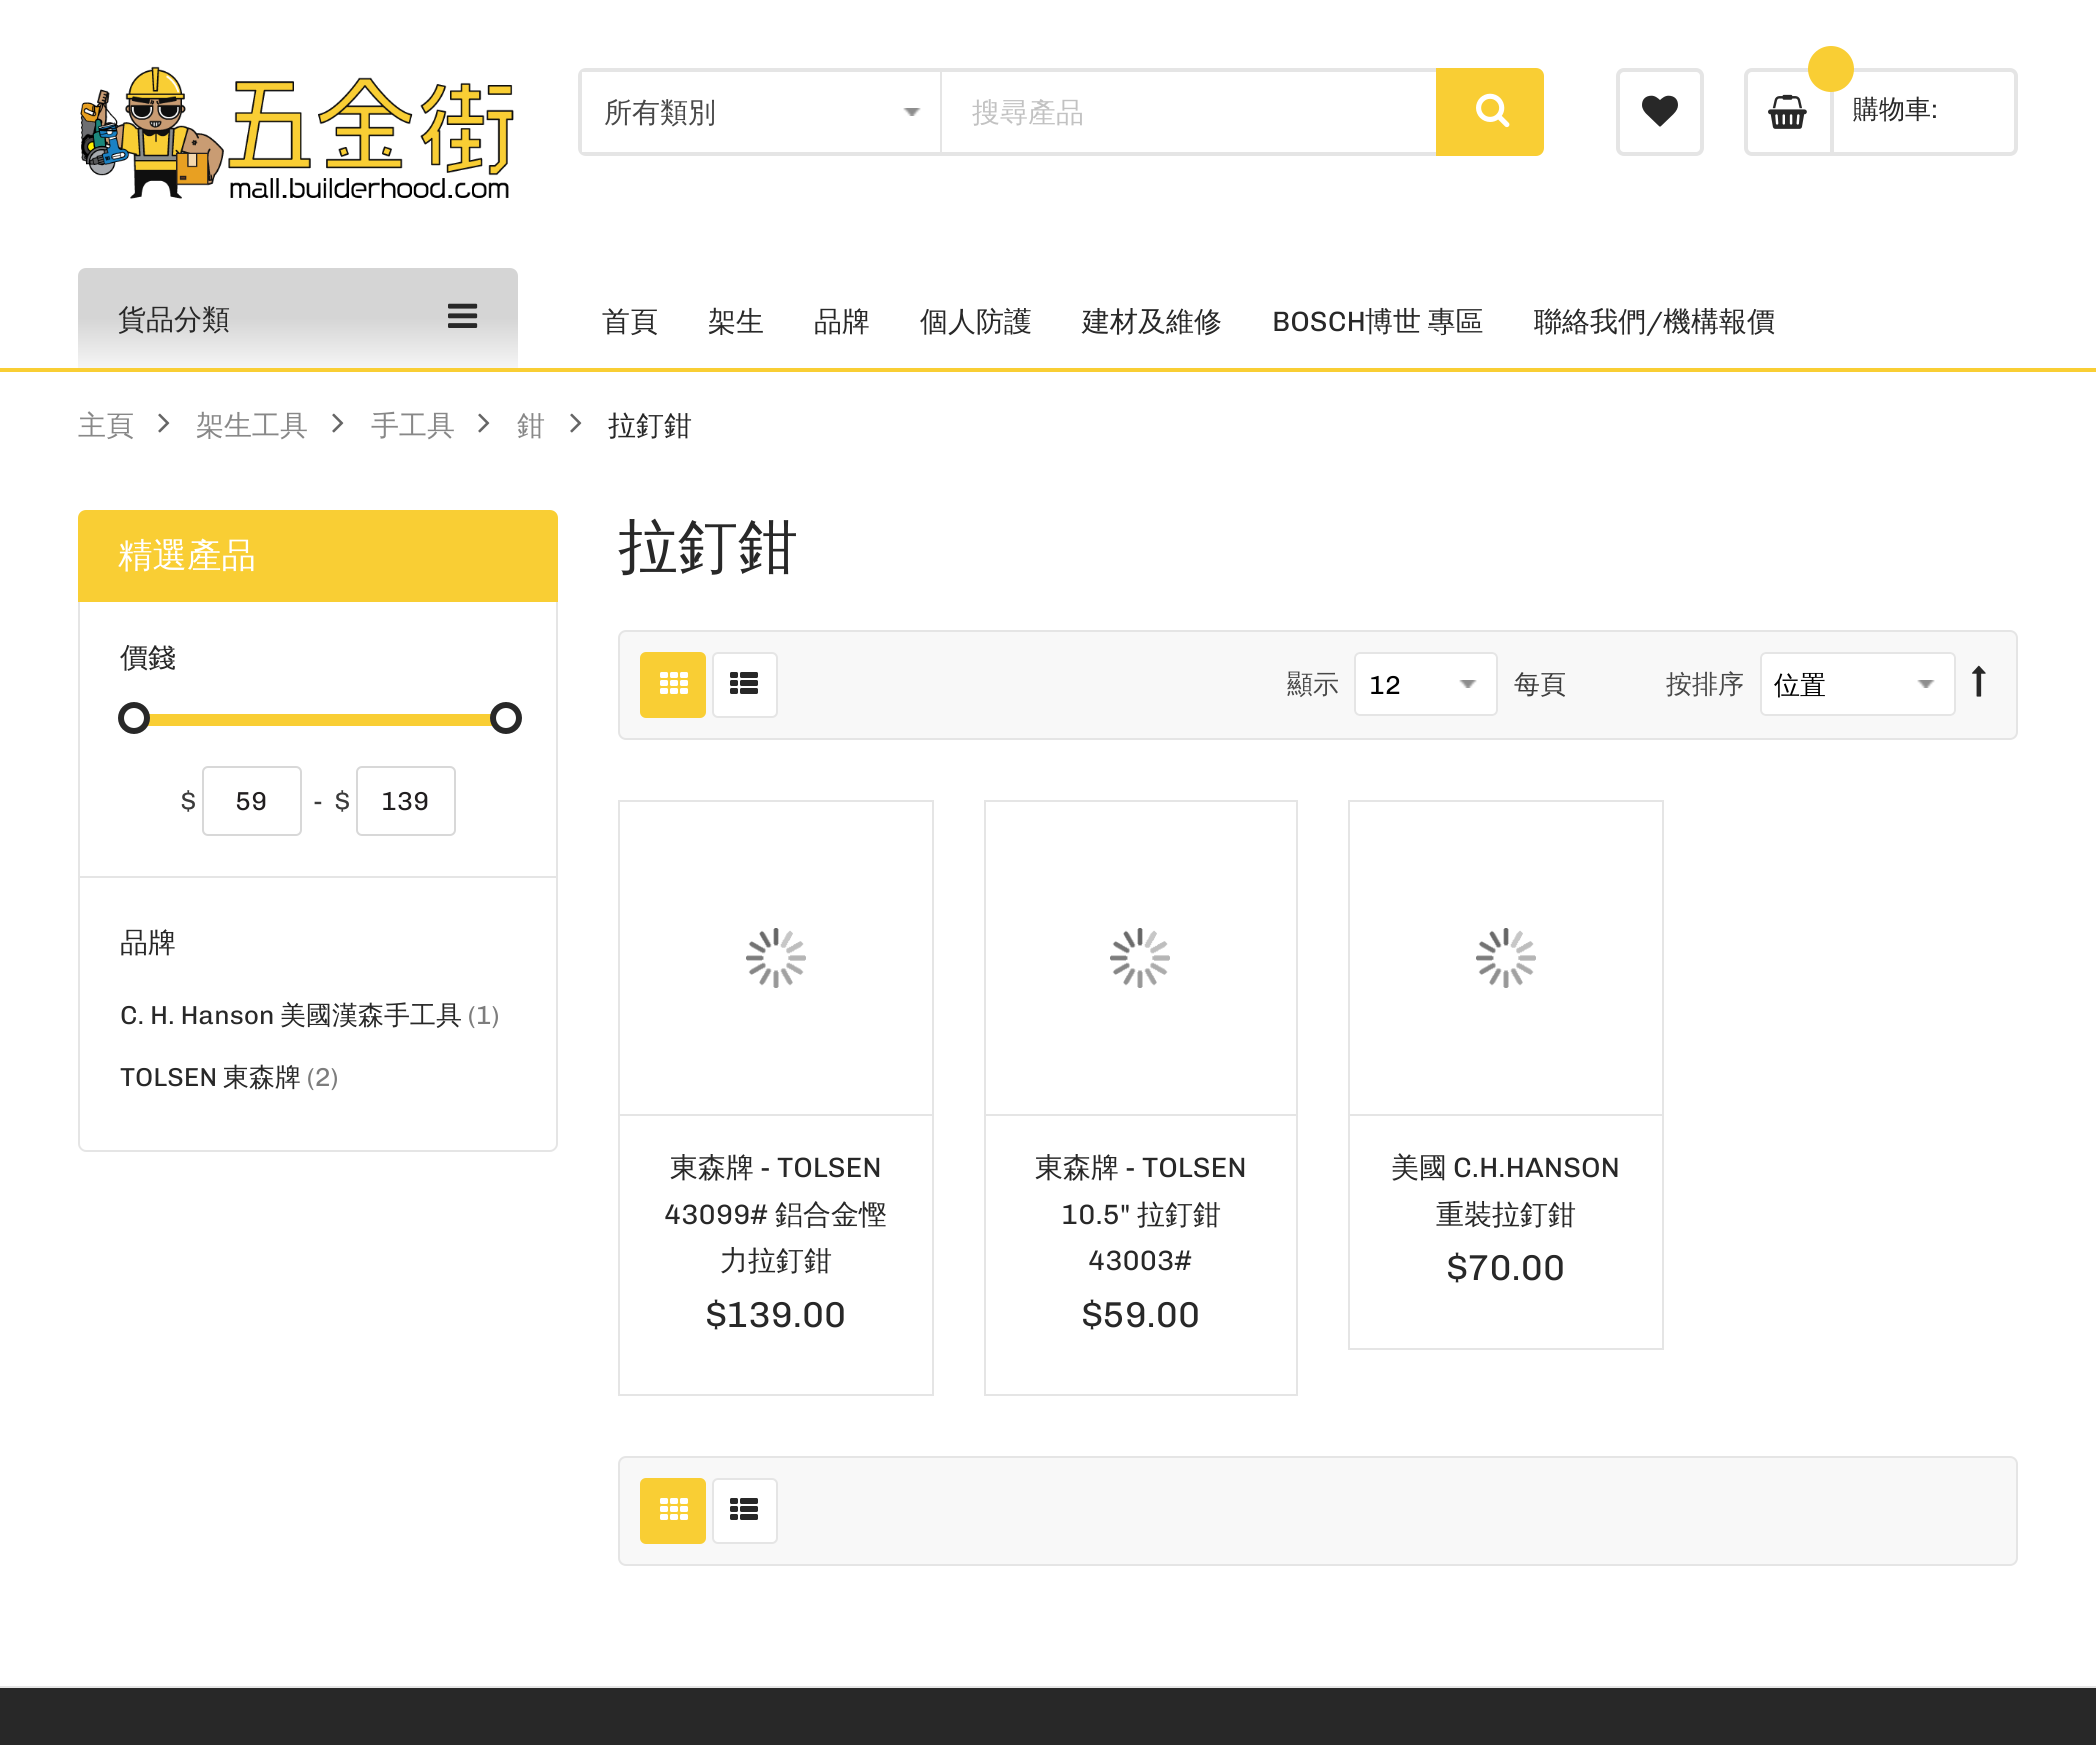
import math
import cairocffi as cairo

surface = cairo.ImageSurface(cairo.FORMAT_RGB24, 2096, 1745)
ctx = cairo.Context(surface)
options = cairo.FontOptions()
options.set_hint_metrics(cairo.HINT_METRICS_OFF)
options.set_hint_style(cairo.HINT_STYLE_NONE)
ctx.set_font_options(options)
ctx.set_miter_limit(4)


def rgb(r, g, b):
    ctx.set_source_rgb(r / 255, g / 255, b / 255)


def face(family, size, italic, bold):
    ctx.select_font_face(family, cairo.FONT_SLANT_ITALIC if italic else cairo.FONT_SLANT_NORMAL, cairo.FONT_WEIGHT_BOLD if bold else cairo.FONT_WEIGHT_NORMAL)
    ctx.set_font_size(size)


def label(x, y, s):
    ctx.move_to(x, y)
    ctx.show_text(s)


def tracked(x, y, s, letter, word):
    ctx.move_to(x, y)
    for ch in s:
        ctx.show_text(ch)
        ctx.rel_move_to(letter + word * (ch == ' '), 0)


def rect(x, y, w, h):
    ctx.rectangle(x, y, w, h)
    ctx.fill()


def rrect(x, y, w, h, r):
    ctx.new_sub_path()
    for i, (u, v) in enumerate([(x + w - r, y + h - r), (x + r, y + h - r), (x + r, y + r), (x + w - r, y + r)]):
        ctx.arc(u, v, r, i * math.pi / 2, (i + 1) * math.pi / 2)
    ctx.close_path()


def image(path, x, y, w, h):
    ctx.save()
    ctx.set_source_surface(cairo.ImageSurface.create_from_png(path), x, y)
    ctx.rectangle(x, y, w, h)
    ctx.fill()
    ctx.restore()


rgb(255, 255, 255)
ctx.paint()
rgb(249, 206, 52)
rect(0, 368, 2096, 4)
image('image0.png', 80, 66, 434, 133)
ctx.new_path()
ctx.move_to(586, 70)
ctx.line_to(1438, 70)
ctx.line_to(1438, 154)
ctx.line_to(586, 154)
ctx.curve_to(582.5, 154, 580, 151.5, 580, 148)
ctx.line_to(580, 76)
ctx.curve_to(580, 72.5, 582.5, 70, 586, 70)
ctx.close_path()
rgb(229, 229, 229)
ctx.set_line_width(4)
ctx.stroke()
rgb(255, 255, 255)
rect(582, 72, 3, 80)
image('image1.png', 903, 108, 18, 8)
rgb(229, 229, 229)
rect(940, 72, 2, 80)
face('WenQuanYi Zen Hei Medium', 28, 0, 0)
rgb(72, 72, 72)
label(604, 122, '所有類別')
rgb(194, 194, 194)
label(972, 122, '搜尋產品')
rgb(249, 206, 52)
ctx.new_path()
ctx.move_to(1436, 68)
ctx.line_to(1536, 68)
ctx.curve_to(1540.5, 68, 1544, 71.5, 1544, 76)
ctx.line_to(1544, 148)
ctx.curve_to(1544, 152.5, 1540.5, 156, 1536, 156)
ctx.line_to(1436, 156)
ctx.close_path()
ctx.fill()
image('image2.png', 1476, 93, 34, 35)
rrect(1618, 70, 84, 84, 6)
rgb(229, 229, 229)
ctx.stroke()
image('image3.png', 1642, 95, 36, 32)
rrect(1746, 70, 270, 84, 6)
ctx.stroke()
rect(1830, 91, 4, 65)
rgb(249, 206, 52)
ctx.arc(1831, 69, 23, 0, 2 * math.pi)
ctx.fill()
image('image4.png', 1768, 94, 39, 35)
face('WenQuanYi Zen Hei Medium', 26, 0, 0)
rgb(40, 40, 40)
label(1853, 118, '購物車')
face('Chivo Medium', 26, 0, 0)
label(1931, 118, ':')
gradient = cairo.LinearGradient(298, 268, 298, 368)
gradient.add_color_stop_rgba(0.5, 0.835, 0.835, 0.835, 1)
gradient.add_color_stop_rgba(1, 0.961, 0.961, 0.961, 1)
ctx.set_source(gradient)
ctx.new_path()
ctx.move_to(86, 268)
ctx.line_to(510, 268)
ctx.curve_to(514.5, 268, 518, 271.5, 518, 276)
ctx.line_to(518, 368)
ctx.line_to(78, 368)
ctx.line_to(78, 276)
ctx.curve_to(78, 271.5, 81.5, 268, 86, 268)
ctx.close_path()
ctx.fill()
face('WenQuanYi Zen Hei Medium', 28, 0, 0)
rgb(40, 40, 40)
label(118, 329, '貨品分類')
image('image5.png', 448, 303, 30, 25)
label(602, 331, '首頁')
label(708, 331, '架生')
label(814, 331, '品牌')
label(920, 331, '個人防護')
label(1082, 331, '建材及維修')
face('Chivo Medium', 28, 0, 0)
label(1272, 331, 'BOSCH')
face('WenQuanYi Zen Hei Medium', 28, 0, 0)
tracked(1365, 331, '博世 專區', 0, -2)
label(1534, 331, '聯絡我們')
face('Chivo Medium', 28, 0, 0)
label(1646, 331, '/')
face('WenQuanYi Zen Hei Medium', 28, 0, 0)
label(1663, 331, '機構報價')
rgb(136, 136, 136)
label(78, 435, '主頁')
image('image6.png', 158, 413, 12, 20)
label(196, 435, '架生工具')
image('image6.png', 332, 413, 12, 20)
label(371, 435, '手工具')
image('image6.png', 478, 413, 12, 20)
label(517, 435, '鉗')
image('image6.png', 570, 413, 12, 20)
rgb(40, 40, 40)
label(608, 435, '拉釘鉗')
rgb(249, 206, 52)
ctx.new_path()
ctx.move_to(86, 510)
ctx.line_to(550, 510)
ctx.curve_to(554.5, 510, 558, 513.5, 558, 518)
ctx.line_to(558, 602)
ctx.line_to(78, 602)
ctx.line_to(78, 518)
ctx.curve_to(78, 513.5, 81.5, 510, 86, 510)
ctx.close_path()
ctx.fill()
face('WenQuanYi Zen Hei Medium', 34.5, 0, 0)
rgb(255, 255, 255)
label(118, 567, '精選產品')
rgb(229, 229, 229)
ctx.set_fill_rule(cairo.FILL_RULE_EVEN_ODD)
ctx.new_path()
ctx.move_to(78, 602)
ctx.line_to(558, 602)
ctx.line_to(558, 1144)
ctx.curve_to(558, 1148, 554, 1152, 550, 1152)
ctx.line_to(86, 1152)
ctx.curve_to(82, 1152, 78, 1148, 78, 1144)
ctx.close_path()
ctx.move_to(80, 602)
ctx.line_to(556, 602)
ctx.line_to(556, 1144)
ctx.curve_to(556, 1147, 553, 1150, 550, 1150)
ctx.line_to(86, 1150)
ctx.curve_to(83, 1150, 80, 1147, 80, 1144)
ctx.close_path()
ctx.fill()
face('WenQuanYi Zen Hei Medium', 28, 0, 0)
rgb(40, 40, 40)
label(120, 667, '價錢')
rgb(229, 229, 229)
rect(80, 876, 476, 2)
rgb(249, 206, 52)
rect(147, 714, 346, 12)
rgb(255, 255, 255)
ctx.new_path()
ctx.arc(134, 718, 13, 0, 2 * math.pi)
ctx.fill_preserve()
rgb(40, 40, 40)
ctx.set_line_width(6)
ctx.stroke()
rgb(255, 255, 255)
ctx.arc(506, 718, 13, 0, 2 * math.pi)
ctx.fill_preserve()
rgb(40, 40, 40)
ctx.stroke()
face('Chivo Medium', 26, 0, 0)
rgb(60, 60, 60)
label(181, 810, '$')
rrect(203, 767, 98, 68, 5)
rgb(216, 216, 216)
ctx.set_line_width(2)
ctx.stroke()
rgb(33, 30, 31)
label(235, 810, '59')
rgb(60, 60, 60)
label(313, 810, '-')
label(335, 810, '$')
rrect(357, 767, 98, 68, 5)
rgb(216, 216, 216)
ctx.stroke()
rgb(33, 30, 31)
label(381, 810, '139')
face('WenQuanYi Zen Hei Medium', 28, 0, 0)
rgb(40, 40, 40)
label(120, 952, '品牌')
face('Chivo Medium', 26, 0, 0)
label(120, 1024, 'C. H. Hanson')
face('WenQuanYi Zen Hei Medium', 26, 0, 0)
label(280, 1024, '美國漢森手工具')
face('Chivo Medium', 26, 0, 0)
rgb(125, 125, 125)
label(468, 1024, '(1)')
rgb(40, 40, 40)
label(120, 1086, 'TOLSEN')
face('WenQuanYi Zen Hei Medium', 26, 0, 0)
label(223, 1086, '東森牌')
face('Chivo Medium', 26, 0, 0)
rgb(125, 125, 125)
label(307, 1086, '(2)')
face('WenQuanYi Zen Hei Medium', 60, 0, 0)
rgb(40, 40, 40)
label(618, 567, '拉釘鉗')
rgb(248, 248, 248)
rrect(619, 631, 1398, 108, 7)
ctx.fill_preserve()
rgb(229, 229, 229)
ctx.stroke()
rgb(249, 206, 52)
rrect(641, 653, 64, 64, 5)
ctx.fill_preserve()
ctx.stroke()
image('image7.png', 660, 672, 28, 22)
rgb(255, 255, 255)
rrect(713, 653, 64, 64, 5)
ctx.fill_preserve()
rgb(229, 229, 229)
ctx.stroke()
image('image8.png', 730, 672, 28, 22)
face('WenQuanYi Zen Hei Medium', 26, 0, 0)
rgb(72, 72, 72)
label(1287, 693, '顯示')
rgb(255, 255, 255)
rrect(1354, 652, 144, 64, 6)
ctx.fill()
image('image1.png', 1459, 680, 18, 8)
rrect(1355, 653, 142, 62, 5)
rgb(229, 229, 229)
ctx.stroke()
face('Chivo Medium', 26, 0, 0)
rgb(0, 0, 0)
label(1369, 694, '12')
face('WenQuanYi Zen Hei Medium', 26, 0, 0)
rgb(60, 60, 60)
label(1514, 693, '每頁')
rgb(72, 72, 72)
label(1666, 693, '按排序')
rgb(255, 255, 255)
rrect(1760, 652, 196, 64, 6)
ctx.fill()
image('image1.png', 1917, 680, 18, 8)
rrect(1761, 653, 194, 62, 5)
rgb(229, 229, 229)
ctx.stroke()
rgb(0, 0, 0)
label(1774, 694, '位置')
image('image9.png', 1972, 665, 14, 32)
ctx.rectangle(619, 801, 314, 314)
rgb(229, 229, 229)
ctx.stroke()
image('image10.png', 746, 928, 60, 60)
rect(932, 1116, 2, 280)
rect(618, 1394, 316, 2)
rect(618, 1116, 2, 280)
face('WenQuanYi Zen Hei Medium', 28, 0, 0)
rgb(40, 40, 40)
label(670, 1177, '東森牌')
face('Chivo Medium', 28, 0, 0)
label(760, 1177, '- TOLSEN')
label(664, 1224, '43099#')
face('WenQuanYi Zen Hei Medium', 28, 0, 0)
label(775, 1224, '鋁合金慳')
label(720, 1270, '力拉釘鉗')
face('Chivo Medium', 36, 0, 0)
label(706, 1327, '$139.00')
ctx.rectangle(985, 801, 312, 314)
rgb(229, 229, 229)
ctx.stroke()
image('image10.png', 1110, 928, 60, 60)
rect(1296, 1116, 2, 280)
rect(984, 1394, 314, 2)
rect(984, 1116, 2, 280)
face('WenQuanYi Zen Hei Medium', 28, 0, 0)
rgb(40, 40, 40)
label(1035, 1177, '東森牌')
face('Chivo Medium', 28, 0, 0)
label(1125, 1177, '- TOLSEN')
label(1061, 1224, '10.5"')
face('WenQuanYi Zen Hei Medium', 28, 0, 0)
label(1137, 1224, '拉釘鉗')
face('Chivo Medium', 28, 0, 0)
label(1088, 1270, '43003#')
face('Chivo Medium', 36, 0, 0)
label(1082, 1327, '$59.00')
ctx.rectangle(1349, 801, 314, 314)
rgb(229, 229, 229)
ctx.stroke()
image('image11.png', 1476, 928, 60, 60)
rect(1662, 1116, 2, 234)
rect(1348, 1348, 316, 2)
rect(1348, 1116, 2, 234)
face('WenQuanYi Zen Hei Medium', 28, 0, 0)
rgb(40, 40, 40)
label(1391, 1177, '美國')
face('Chivo Medium', 28, 0, 0)
label(1453, 1177, 'C.H.HANSON')
face('WenQuanYi Zen Hei Medium', 28, 0, 0)
label(1436, 1224, '重裝拉釘鉗')
face('Chivo Medium', 36, 0, 0)
label(1447, 1280, '$70.00')
rgb(248, 248, 248)
rrect(619, 1457, 1398, 108, 7)
ctx.fill_preserve()
rgb(229, 229, 229)
ctx.stroke()
rgb(249, 206, 52)
rrect(641, 1479, 64, 64, 5)
ctx.fill_preserve()
ctx.stroke()
image('image7.png', 660, 1498, 28, 22)
rgb(255, 255, 255)
rrect(713, 1479, 64, 64, 5)
ctx.fill_preserve()
rgb(229, 229, 229)
ctx.stroke()
image('image8.png', 730, 1498, 28, 22)
rgb(40, 40, 40)
rect(0, 1688, 2096, 57)
rgb(229, 229, 229)
rect(0, 1686, 2096, 2)
surface.write_to_png('render.png')
